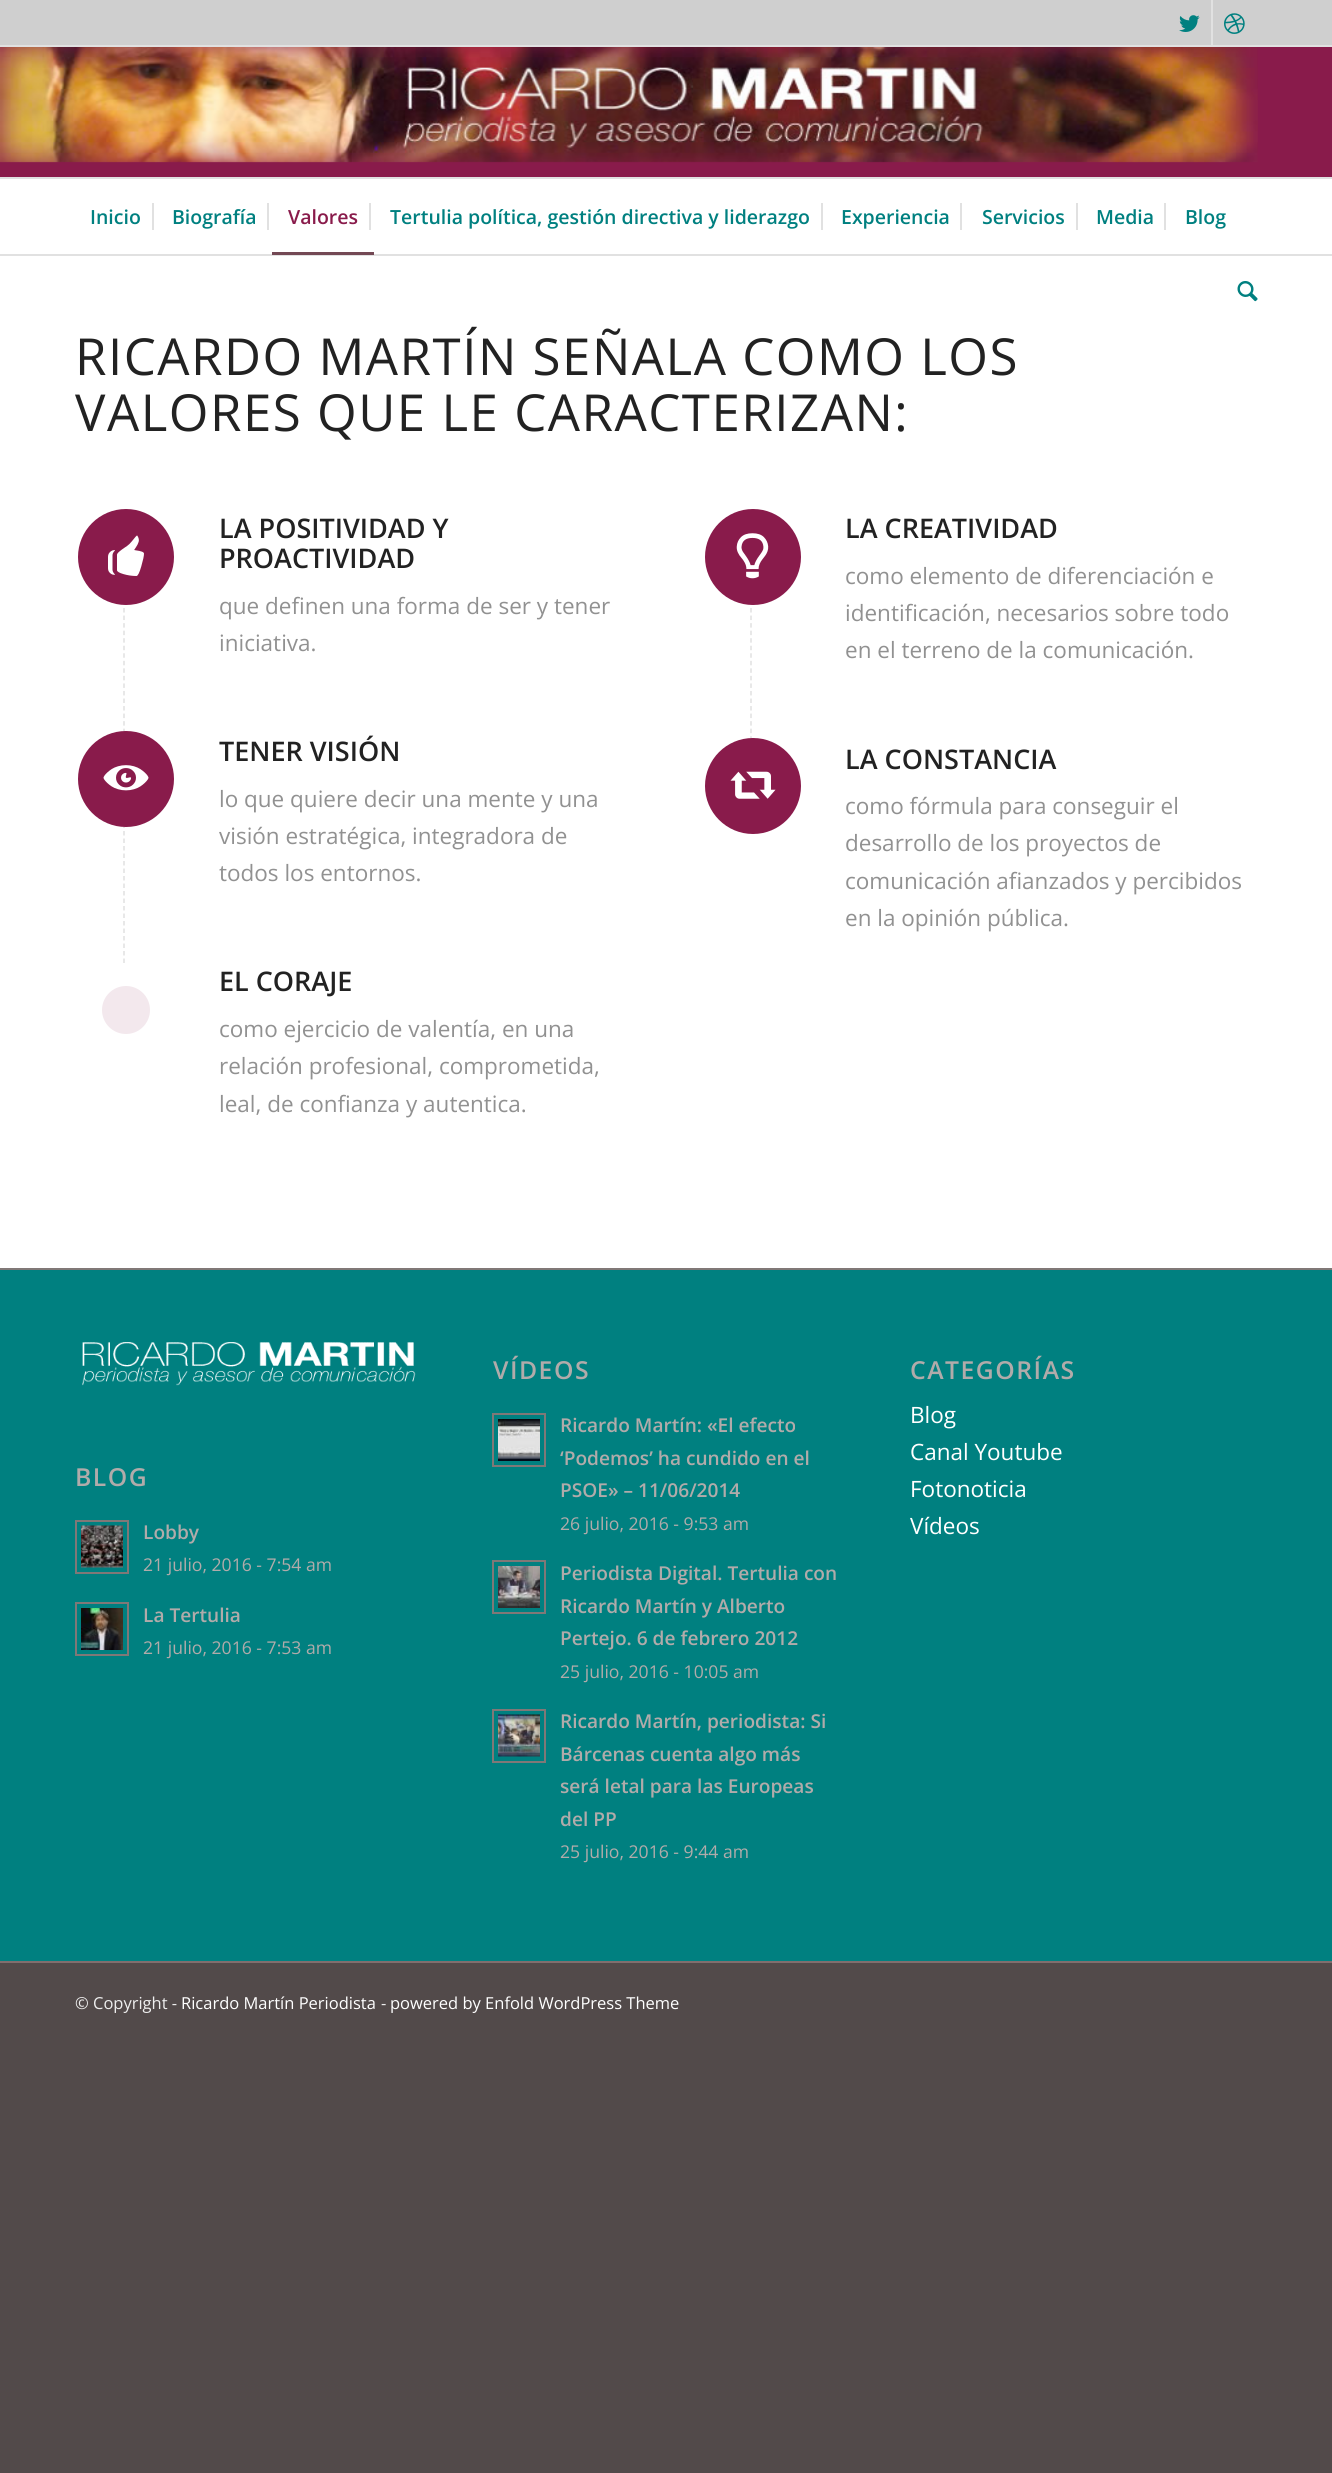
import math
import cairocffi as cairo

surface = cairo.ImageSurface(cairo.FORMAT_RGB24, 1332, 2473)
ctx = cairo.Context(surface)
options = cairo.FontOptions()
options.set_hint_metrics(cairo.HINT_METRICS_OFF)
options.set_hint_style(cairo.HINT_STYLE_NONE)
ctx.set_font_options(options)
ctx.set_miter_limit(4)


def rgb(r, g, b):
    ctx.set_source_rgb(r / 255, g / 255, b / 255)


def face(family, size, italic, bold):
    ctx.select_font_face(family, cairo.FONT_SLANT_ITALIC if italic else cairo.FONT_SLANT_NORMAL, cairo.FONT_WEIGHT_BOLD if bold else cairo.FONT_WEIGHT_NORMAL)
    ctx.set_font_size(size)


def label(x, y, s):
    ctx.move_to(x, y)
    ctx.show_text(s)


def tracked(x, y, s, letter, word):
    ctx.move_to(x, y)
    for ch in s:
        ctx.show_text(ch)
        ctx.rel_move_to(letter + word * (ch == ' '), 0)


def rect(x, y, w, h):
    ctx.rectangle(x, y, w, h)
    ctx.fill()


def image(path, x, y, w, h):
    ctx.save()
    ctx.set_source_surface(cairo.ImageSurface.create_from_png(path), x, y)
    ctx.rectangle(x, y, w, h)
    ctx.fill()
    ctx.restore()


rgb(82, 74, 74)
ctx.paint()
rgb(207, 207, 207)
rect(0, 0, 1332, 45)
rgb(225, 225, 225)
rect(0, 45, 1332, 2)
rect(1211, 0, 2, 45)
image('image0.png', 1179, 15, 21, 17)
image('image1.png', 1224, 13, 21, 21)
rgb(255, 255, 255)
rect(0, 179, 1332, 1089)
rgb(225, 225, 225)
rect(0, 254, 1332, 2)
rgb(137, 27, 75)
rect(0, 47, 1332, 130)
image('image2.png', 0, 47, 1258, 116)
rgb(225, 225, 225)
rect(0, 177, 1332, 2)
face('Open Sans SemiBold', 19.5, 0, 0)
rgb(0, 128, 128)
label(90, 224, 'Inicio')
label(172, 224, 'Biografía')
rgb(225, 225, 225)
rect(152, 203, 2, 27)
rgb(137, 27, 75)
label(288, 224, 'Valores')
rgb(225, 225, 225)
rect(267, 203, 2, 27)
rgb(115, 72, 84)
rect(272, 252, 102, 3)
rgb(0, 128, 128)
label(390, 224, 'Tertulia política, gestión directiva y liderazgo')
rgb(225, 225, 225)
rect(369, 203, 2, 27)
rgb(0, 128, 128)
label(841, 224, 'Experiencia')
rgb(225, 225, 225)
rect(821, 203, 2, 27)
rgb(0, 128, 128)
label(982, 224, 'Servicios')
rgb(225, 225, 225)
rect(960, 203, 2, 27)
rgb(0, 128, 128)
label(1096, 224, 'Media')
rgb(225, 225, 225)
rect(1076, 203, 2, 27)
rgb(0, 128, 128)
label(1185, 224, 'Blog')
rgb(225, 225, 225)
rect(1164, 203, 2, 27)
image('image3.png', 1237, 281, 21, 21)
face('Open Sans', 51, 0, 0)
rgb(34, 34, 34)
tracked(75, 375, 'RICARDO MARTÍN SEÑALA COMO LOS', 1.5, 0)
tracked(75, 431, 'VALORES QUE LE CARACTERIZAN:', 1.5, 0)
ctx.new_path()
ctx.move_to(124, 510)
ctx.line_to(124, 733.5)
rgb(225, 225, 225)
ctx.set_line_width(1.5)
ctx.set_dash([4.5, 3.04])
ctx.stroke()
rgb(137, 27, 75)
ctx.arc(126, 557, 48, 0, 2 * math.pi)
ctx.fill()
image('image4.png', 108, 535, 36, 41)
face('Open Sans SemiBold', 27, 0, 0)
rgb(34, 34, 34)
label(219, 538, 'LA POSITIVIDAD Y')
label(219, 568, 'PROACTIVIDAD')
face('Open Sans', 22.5, 0, 0)
rgb(145, 145, 145)
label(219, 614, 'que definen una forma de ser y tener')
label(219, 651, 'iniciativa.')
ctx.new_path()
ctx.move_to(124, 733.5)
ctx.line_to(124, 963)
rgb(225, 225, 225)
ctx.set_dash([4.5, 3])
ctx.stroke()
rgb(137, 27, 75)
ctx.arc(126, 779, 48, 0, 2 * math.pi)
ctx.fill()
image('image5.png', 103, 765, 46, 26)
face('Open Sans SemiBold', 27, 0, 0)
rgb(34, 34, 34)
label(219, 761, 'TENER VISIÓN')
face('Open Sans', 22.5, 0, 0)
rgb(145, 145, 145)
label(219, 807, 'lo que quiere decir una mente y una')
label(219, 844, 'visión estratégica, integradora de')
label(219, 881, 'todos los entornos.')
rgb(243, 232, 237)
ctx.new_path()
ctx.arc(126, 1010, 24, 0, 2 * math.pi)
ctx.fill()
face('Open Sans SemiBold', 27, 0, 0)
rgb(34, 34, 34)
label(219, 991, 'EL CORAJE')
face('Open Sans', 22.5, 0, 0)
rgb(145, 145, 145)
label(219, 1037, 'como ejercicio de valentía, en una')
label(219, 1074, 'relación profesional, comprometida,')
label(219, 1112, 'leal, de confianza y autentica.')
ctx.new_path()
ctx.move_to(751, 510)
ctx.line_to(751, 741)
rgb(225, 225, 225)
ctx.set_dash([4.5, 3.04])
ctx.stroke()
rgb(137, 27, 75)
ctx.arc(753, 557, 48, 0, 2 * math.pi)
ctx.fill()
image('image6.png', 736, 533, 33, 46)
face('Open Sans SemiBold', 27, 0, 0)
rgb(34, 34, 34)
label(845, 538, 'LA CREATIVIDAD')
face('Open Sans', 22.5, 0, 0)
rgb(145, 145, 145)
label(845, 584, 'como elemento de diferenciación e')
label(845, 621, 'identificación, necesarios sobre todo')
label(845, 658, 'en el terreno de la comunicación.')
rgb(137, 27, 75)
ctx.new_path()
ctx.arc(753, 786, 48, 0, 2 * math.pi)
ctx.fill()
image('image7.png', 730, 771, 46, 28)
face('Open Sans SemiBold', 27, 0, 0)
rgb(34, 34, 34)
label(845, 769, 'LA CONSTANCIA')
face('Open Sans', 22.5, 0, 0)
rgb(145, 145, 145)
label(845, 814, 'como fórmula para conseguir el')
label(845, 851, 'desarrollo de los proyectos de')
label(845, 889, 'comunicación afianzados y percibidos')
label(845, 926, 'en la opinión pública.')
rgb(0, 128, 128)
rect(0, 1270, 1332, 691)
rgb(128, 120, 119)
rect(0, 1268, 1332, 2)
face('Open Sans SemiBold', 24.75, 0, 0)
rgb(177, 171, 170)
tracked(493, 1379, 'VÍDEOS', 1.5, 0)
ctx.rectangle(493, 1414, 52, 52)
rgb(128, 120, 119)
ctx.set_line_width(2)
ctx.set_dash([])
ctx.stroke()
image('image8.png', 498, 1419, 42, 42)
face('Open Sans SemiBold', 19.1, 0, 0)
rgb(177, 171, 170)
label(560, 1432, 'Ricardo Martín: «El efecto')
label(560, 1465, '‘Podemos’ ha cundido en el')
label(560, 1497, 'PSOE» – 11/06/2014')
face('Open Sans', 17.6, 0, 0)
label(560, 1530, '26 julio, 2016 - 9:53 am')
ctx.rectangle(493, 1561, 52, 52)
rgb(128, 120, 119)
ctx.stroke()
image('image9.png', 498, 1566, 42, 42)
face('Open Sans SemiBold', 19.1, 0, 0)
rgb(177, 171, 170)
label(560, 1580, 'Periodista Digital. Tertulia con')
label(560, 1613, 'Ricardo Martín y Alberto')
label(560, 1645, 'Pertejo. 6 de febrero 2012')
face('Open Sans', 17.6, 0, 0)
label(560, 1678, '25 julio, 2016 - 10:05 am')
ctx.rectangle(493, 1710, 52, 52)
rgb(128, 120, 119)
ctx.stroke()
image('image10.png', 498, 1714, 42, 43)
face('Open Sans SemiBold', 19.1, 0, 0)
rgb(177, 171, 170)
label(560, 1728, 'Ricardo Martín, periodista: Si')
label(560, 1761, 'Bárcenas cuenta algo más')
label(560, 1793, 'será letal para las Europeas')
label(560, 1826, 'del PP')
face('Open Sans', 17.6, 0, 0)
label(560, 1858, '25 julio, 2016 - 9:44 am')
face('Open Sans SemiBold', 24.75, 0, 0)
tracked(910, 1379, 'CATEGORÍAS', 1.5, 0)
face('Open Sans', 22.5, 0, 0)
rgb(255, 255, 255)
label(910, 1423, 'Blog')
label(910, 1460, 'Canal Youtube')
label(910, 1497, 'Fotonoticia')
label(910, 1534, 'Vídeos')
image('image11.png', 82, 1342, 334, 44)
face('Open Sans SemiBold', 24.75, 0, 0)
rgb(177, 171, 170)
tracked(75, 1486, 'BLOG', 1.5, 0)
ctx.rectangle(76, 1521, 52, 52)
rgb(128, 120, 119)
ctx.stroke()
image('image12.png', 81, 1525, 42, 43)
face('Open Sans SemiBold', 19.1, 0, 0)
rgb(177, 171, 170)
label(143, 1539, 'Lobby')
face('Open Sans', 17.6, 0, 0)
label(143, 1571, '21 julio, 2016 - 7:54 am')
ctx.rectangle(76, 1603, 52, 52)
rgb(128, 120, 119)
ctx.stroke()
image('image13.png', 81, 1608, 42, 42)
face('Open Sans SemiBold', 19.1, 0, 0)
rgb(177, 171, 170)
label(143, 1622, 'La Tertulia')
face('Open Sans', 17.6, 0, 0)
label(143, 1654, '21 julio, 2016 - 7:53 am')
rgb(128, 110, 110)
rect(0, 1961, 1332, 2)
face('Open Sans', 16.5, 0, 0)
rgb(238, 238, 238)
label(75, 2009, '© Copyright -')
rgb(255, 255, 255)
label(181, 2009, 'Ricardo Martín Periodista')
rgb(238, 238, 238)
label(381, 2009, '-')
rgb(255, 255, 255)
label(390, 2009, 'powered by Enfold WordPress Theme')
surface.write_to_png('render.png')
